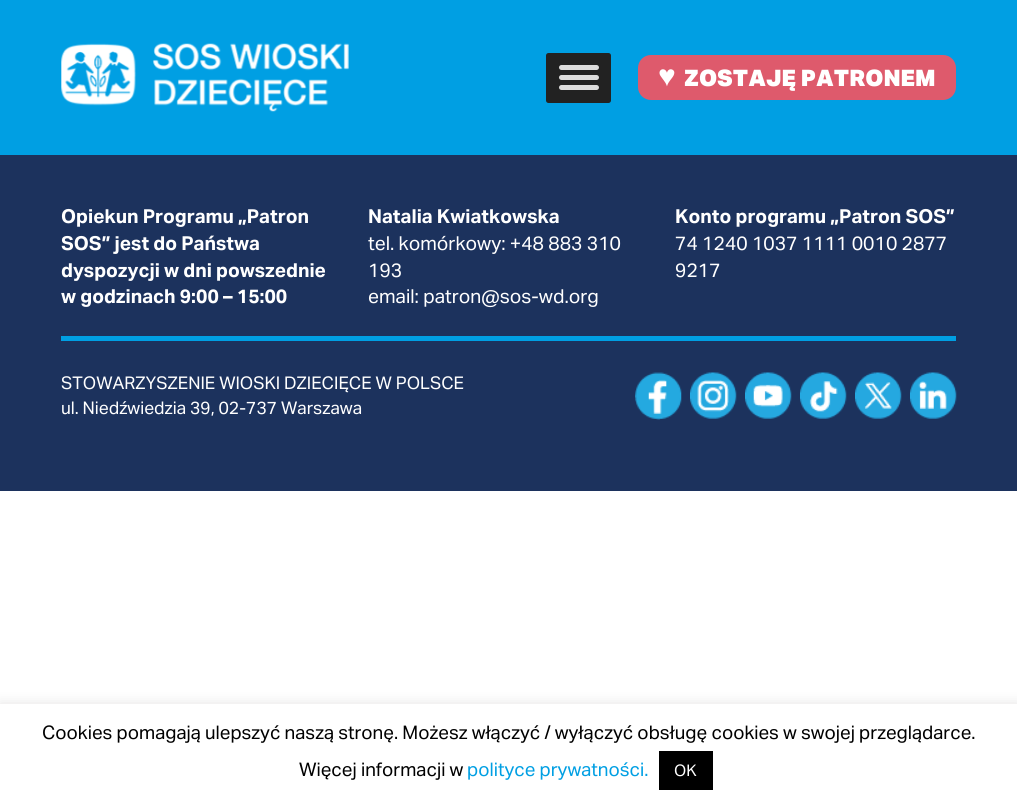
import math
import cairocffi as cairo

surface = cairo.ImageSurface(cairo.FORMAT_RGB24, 1017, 811)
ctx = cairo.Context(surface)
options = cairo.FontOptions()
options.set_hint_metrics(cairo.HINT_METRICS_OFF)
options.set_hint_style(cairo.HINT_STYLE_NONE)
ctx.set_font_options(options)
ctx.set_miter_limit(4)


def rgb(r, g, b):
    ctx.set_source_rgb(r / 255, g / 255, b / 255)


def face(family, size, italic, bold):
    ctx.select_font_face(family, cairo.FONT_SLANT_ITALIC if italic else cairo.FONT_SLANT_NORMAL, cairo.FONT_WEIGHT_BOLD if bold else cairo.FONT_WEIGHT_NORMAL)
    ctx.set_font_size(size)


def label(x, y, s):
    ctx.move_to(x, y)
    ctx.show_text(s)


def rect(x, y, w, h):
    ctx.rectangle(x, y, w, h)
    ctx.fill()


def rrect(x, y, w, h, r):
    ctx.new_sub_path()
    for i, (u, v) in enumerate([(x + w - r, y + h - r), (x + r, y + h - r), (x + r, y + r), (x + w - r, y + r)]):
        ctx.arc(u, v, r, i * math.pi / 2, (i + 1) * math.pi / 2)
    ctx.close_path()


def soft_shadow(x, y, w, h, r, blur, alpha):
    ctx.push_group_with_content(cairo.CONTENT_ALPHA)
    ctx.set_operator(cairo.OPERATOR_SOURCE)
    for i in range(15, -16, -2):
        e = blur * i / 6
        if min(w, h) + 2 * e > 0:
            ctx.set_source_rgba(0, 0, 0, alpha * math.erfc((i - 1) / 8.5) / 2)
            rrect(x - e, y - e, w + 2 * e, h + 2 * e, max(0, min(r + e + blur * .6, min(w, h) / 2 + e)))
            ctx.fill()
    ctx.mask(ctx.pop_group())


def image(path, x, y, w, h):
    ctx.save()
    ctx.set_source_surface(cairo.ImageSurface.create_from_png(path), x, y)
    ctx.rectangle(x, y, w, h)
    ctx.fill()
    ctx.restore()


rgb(255, 255, 255)
ctx.paint()
rgb(0, 159, 227)
rect(0, 0, 1017, 155)
image('image0.png', 61, 43, 288, 69)
rgb(34, 34, 34)
rrect(546, 53, 65, 50, 2.5)
ctx.fill()
rgb(221, 221, 221)
rrect(559, 65, 40, 5, 2.5)
ctx.fill()
rrect(559, 75, 40, 5, 2.5)
ctx.fill()
rrect(559, 85, 40, 5, 2.5)
ctx.fill()
rgb(222, 90, 108)
rrect(638, 55, 318, 45, 13)
ctx.fill()
face('Liberation Sans', 30, 0, 1)
rgb(255, 255, 255)
label(658, 86, '♥')
face('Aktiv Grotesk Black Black', 22.75, 0, 0)
label(684, 86, 'ZOSTAJĘ PATRONEM')
rgb(28, 50, 93)
rect(0, 155, 1017, 336)
face('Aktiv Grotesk', 19.25, 0, 1)
rgb(255, 255, 255)
label(61, 223, 'Opiekun Programu „Patron')
label(61, 250, 'SOS” jest do Państwa')
label(61, 277, 'dyspozycji w dni powszednie')
label(61, 303, 'w godzinach 9:00 – 15:00')
label(368, 223, 'Natalia Kwiatkowska')
face('Aktiv Grotesk', 19.25, 0, 0)
label(368, 250, 'tel. komórkowy: +48 883 310')
label(368, 277, '193')
label(368, 303, 'email: patron@sos-wd.org')
face('Aktiv Grotesk', 19.25, 0, 1)
label(675, 223, 'Konto programu „Patron SOS”')
face('Aktiv Grotesk', 19.25, 0, 0)
label(675, 250, '74 1240 1037 1111 0010 2877')
label(675, 277, '9217')
rgb(0, 159, 227)
rect(61, 336, 895, 5)
face('Aktiv Grotesk', 17.5, 0, 0)
rgb(255, 255, 255)
label(61, 389, 'STOWARZYSZENIE WIOSKI DZIECIĘCE W POLSCE')
label(61, 414, 'ul. Niedźwiedzia 39, 02-737 Warszawa')
image('image1.png', 635, 372, 47, 48)
image('image2.png', 690, 372, 47, 47)
image('image3.png', 745, 372, 47, 47)
image('image4.png', 800, 372, 47, 47)
image('image5.png', 855, 372, 47, 47)
image('image6.png', 910, 372, 47, 47)
rgb(172, 171, 171)
soft_shadow(0, 703, 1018, 107, 0, 6, 0.3)
rgb(255, 255, 255)
rect(0, 704, 1017, 107)
face('Aktiv Grotesk', 18.75, 0, 0)
rgb(0, 0, 0)
label(42, 739, 'Cookies pomagają ulepszyć naszą stronę. Możesz włączyć / wyłączyć obsługę cookies w swojej przeglądarce.')
label(299, 776, 'Więcej informacji w')
rgb(0, 159, 227)
label(467, 776, 'polityce prywatności.')
rgb(0, 0, 0)
rect(659, 751, 54, 39)
face('Aktiv Grotesk', 16, 0, 0)
rgb(255, 255, 255)
label(674, 776, 'OK')
surface.write_to_png('render.png')
